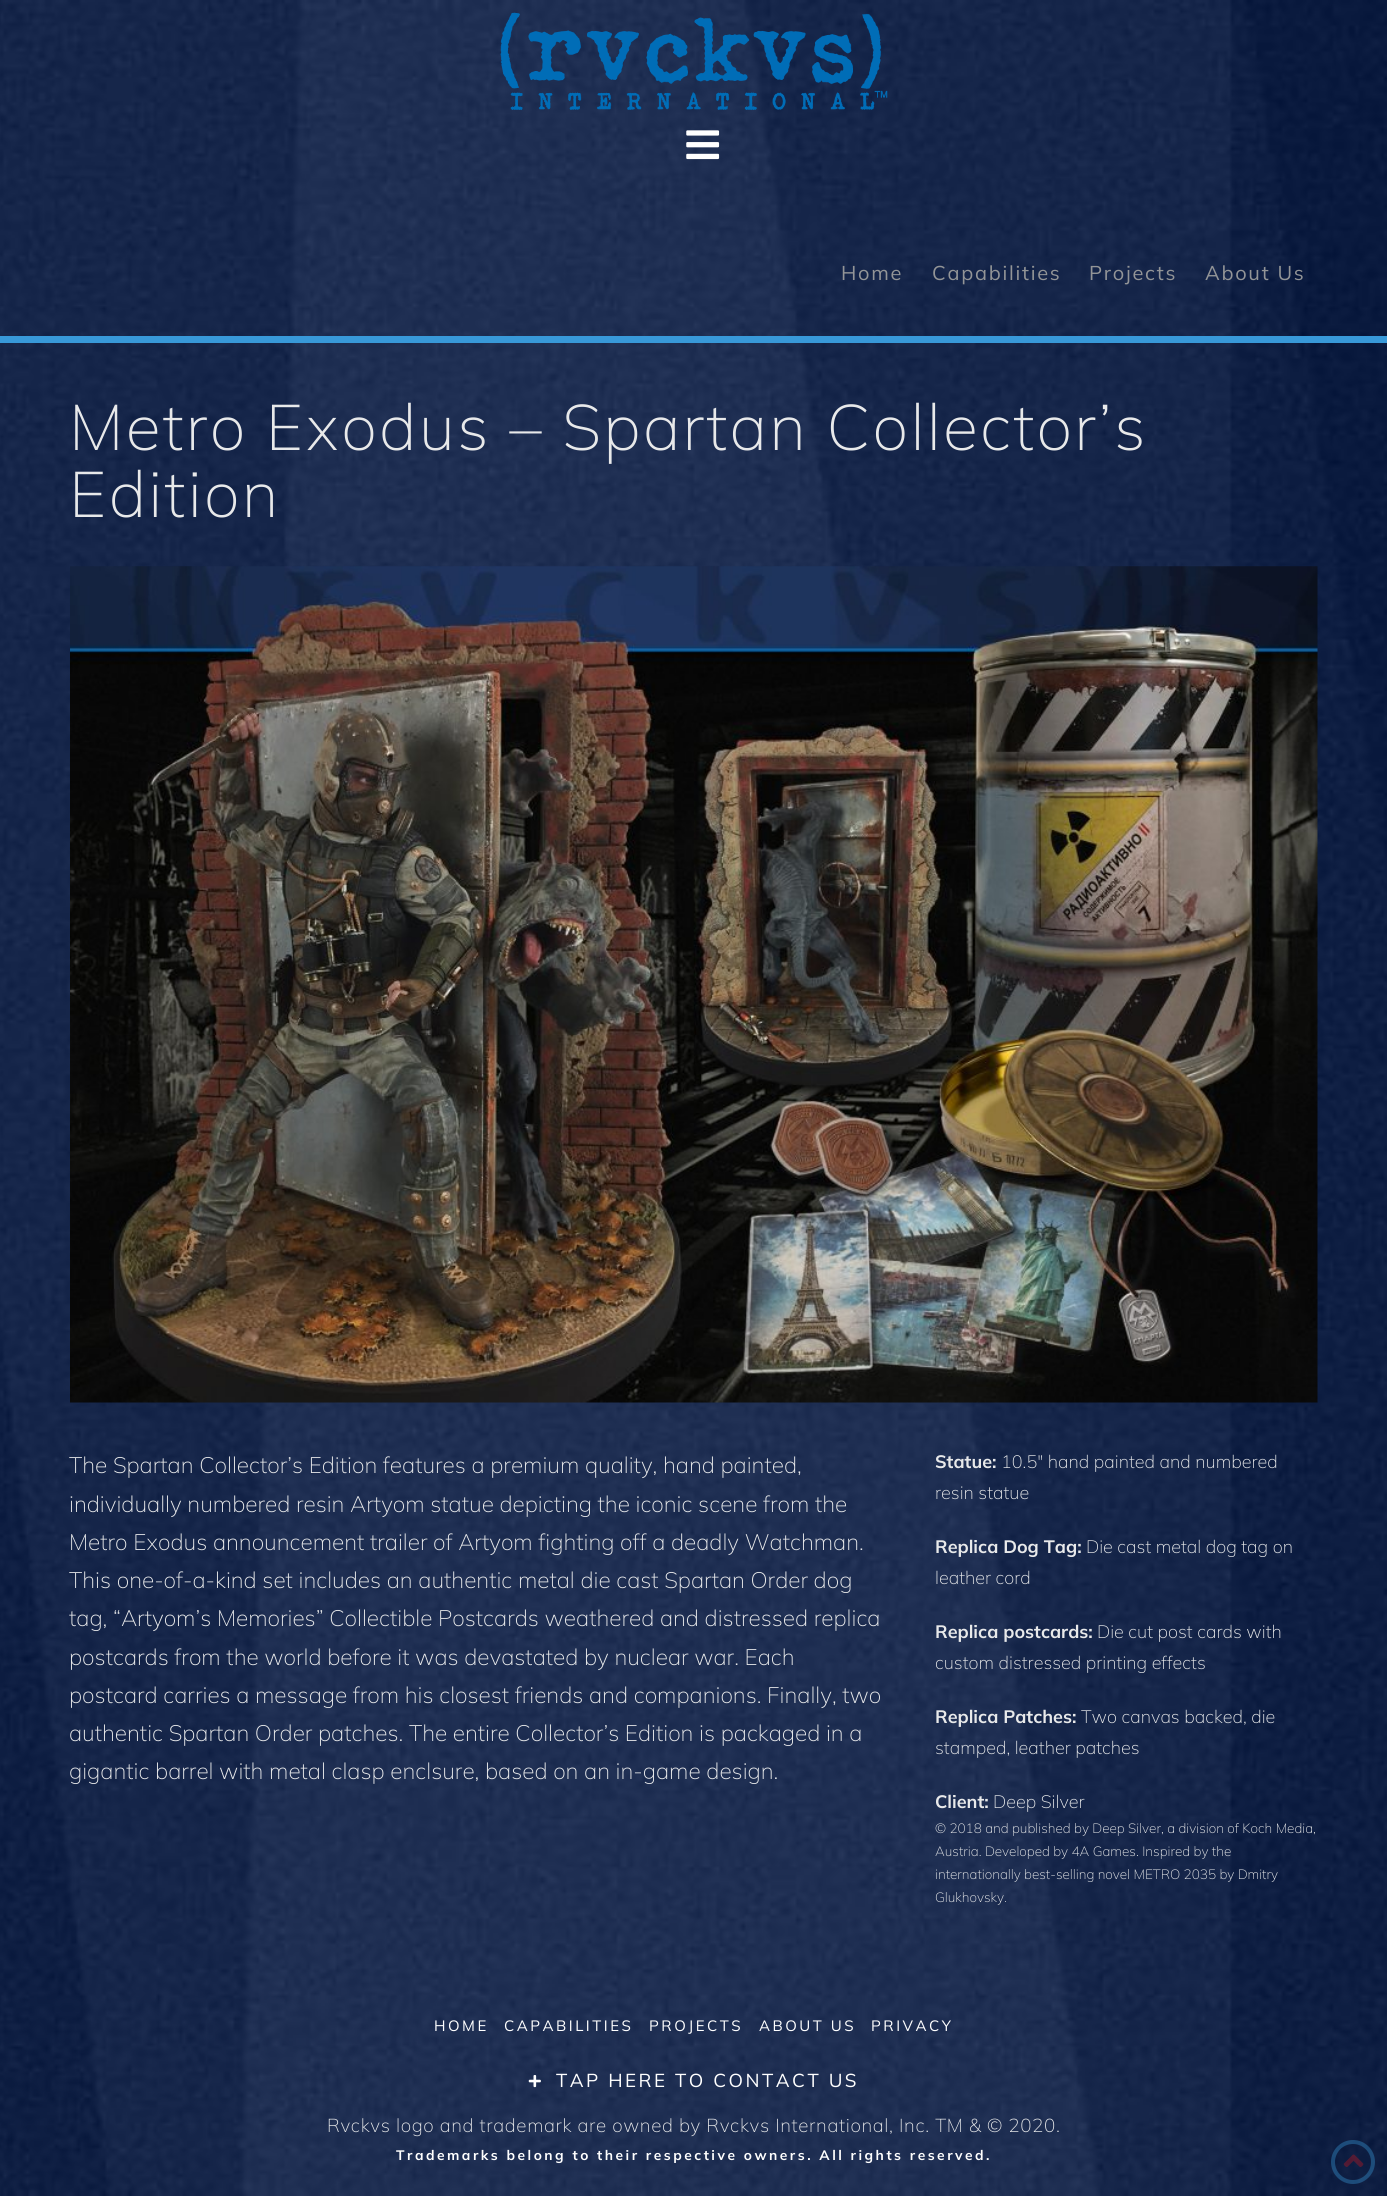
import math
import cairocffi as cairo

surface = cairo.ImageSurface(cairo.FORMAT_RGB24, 1387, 2196)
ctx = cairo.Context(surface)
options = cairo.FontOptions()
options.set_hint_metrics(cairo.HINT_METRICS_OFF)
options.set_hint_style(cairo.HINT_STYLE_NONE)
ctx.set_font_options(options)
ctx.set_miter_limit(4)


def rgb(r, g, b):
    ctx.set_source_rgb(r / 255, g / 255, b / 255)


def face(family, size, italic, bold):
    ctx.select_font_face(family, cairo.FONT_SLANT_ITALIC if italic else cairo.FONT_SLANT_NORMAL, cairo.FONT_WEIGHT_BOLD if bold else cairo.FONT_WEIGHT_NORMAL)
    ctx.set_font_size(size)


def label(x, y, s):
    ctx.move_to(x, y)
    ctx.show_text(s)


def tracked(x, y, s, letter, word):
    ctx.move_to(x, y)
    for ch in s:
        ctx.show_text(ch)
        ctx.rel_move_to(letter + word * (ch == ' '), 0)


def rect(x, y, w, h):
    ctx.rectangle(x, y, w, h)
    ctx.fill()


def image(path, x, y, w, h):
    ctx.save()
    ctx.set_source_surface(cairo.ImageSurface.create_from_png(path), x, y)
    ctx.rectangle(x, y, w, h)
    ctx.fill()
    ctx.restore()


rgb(255, 255, 255)
ctx.paint()
image('image0.png', 0, 0, 1387, 2196)
rgb(56, 153, 217)
rect(0, 336, 1387, 7)
image('image1.png', 500, 12, 388, 98)
image('image2.png', 686, 130, 34, 30)
face('Mulish', 20, 0, 0)
rgb(147, 149, 151)
tracked(841, 280, 'Home', 1.75, 0)
tracked(932, 280, 'Capabilities', 1.75, 0)
tracked(1089, 280, 'Projects', 1.75, 0)
tracked(1205, 280, 'About Us', 1.75, 0)
face('Mulish ExtraLight', 64.25, 0, 0)
rgb(232, 233, 234)
tracked(69, 450, 'Metro Exodus – Spartan Collector’s', 2.25, 0)
tracked(69, 517, 'Edition', 2.25, 0)
image('image3.png', 70, 566, 1248, 837)
face('Mulish ExtraLight', 22.5, 0, 0)
label(69, 1473, 'The Spartan Collector’s Edition features a premium quality, hand painted,')
label(69, 1512, 'individually numbered resin Artyom statue depicting the iconic scene from the')
label(69, 1550, 'Metro Exodus announcement trailer of Artyom fighting off a deadly Watchman.')
label(69, 1588, 'This one-of-a-kind set includes an authentic metal die cast Spartan Order dog')
label(69, 1626, 'tag, “Artyom’s Memories” Collectible Postcards weathered and distressed replica')
label(69, 1665, 'postcards from the world before it was devastated by nuclear war. Each')
label(69, 1703, 'postcard carries a message from his closest friends and companions. Finally, two')
label(69, 1741, 'authentic Spartan Order patches. The entire Collector’s Edition is packaged in a')
label(69, 1779, 'gigantic barrel with metal clasp enclsure, based on an in-game design.')
face('Mulish', 18, 0, 1)
label(935, 1468, 'Statue:')
face('Mulish ExtraLight', 18, 0, 0)
label(1001, 1468, '10.5″ hand painted and numbered')
label(935, 1499, 'resin statue')
face('Mulish', 18, 0, 1)
label(935, 1553, 'Replica Dog Tag:')
face('Mulish ExtraLight', 18, 0, 0)
label(1086, 1553, 'Die cast metal dog tag on')
label(935, 1584, 'leather cord')
face('Mulish', 18, 0, 1)
label(935, 1638, 'Replica postcards:')
face('Mulish ExtraLight', 18, 0, 0)
label(1097, 1638, 'Die cut post cards with')
label(935, 1669, 'custom distressed printing effects')
face('Mulish', 18, 0, 1)
label(935, 1723, 'Replica Patches:')
face('Mulish ExtraLight', 18, 0, 0)
label(1081, 1723, 'Two canvas backed, die')
label(935, 1754, 'stamped, leather patches')
face('Mulish', 18, 0, 1)
label(935, 1808, 'Client:')
face('Mulish ExtraLight', 18, 0, 0)
label(993, 1808, 'Deep Silver')
face('Mulish ExtraLight', 13.5, 0, 0)
label(935, 1833, '© 2018 and published by Deep Silver, a division of Koch Media,')
label(935, 1856, 'Austria. Developed by 4A Games. Inspired by the')
label(935, 1879, 'internationally best-selling novel METRO 2035 by Dmitry')
label(935, 1902, 'Glukhovsky.')
face('Mulish', 15, 0, 0)
rgb(255, 255, 255)
tracked(434, 2031, 'HOME', 2.5, 0)
tracked(504, 2031, 'CAPABILITIES', 2.5, 0)
tracked(649, 2031, 'PROJECTS', 2.5, 0)
tracked(759, 2031, 'ABOUT US', 2.5, 0)
tracked(871, 2031, 'PRIVACY', 2.5, 0)
image('image4.png', 528, 2075, 13, 13)
face('Mulish', 18.75, 0, 0)
tracked(556, 2087, 'TAP HERE TO CONTACT US', 2.5, 0)
face('Mulish ExtraLight', 18.75, 0, 0)
rgb(232, 233, 234)
tracked(327, 2132, 'Rvckvs logo and trademark are owned by Rvckvs International, Inc. TM & © 2020.', 0.65, 0)
face('Mulish', 13.75, 0, 1)
rgb(255, 255, 255)
tracked(396, 2160, 'Trademarks belong to their respective owners. All rights reserved.', 2.5, 0)
ctx.new_path()
ctx.arc(1353, 2162, 20, 0, 2 * math.pi)
ctx.set_source_rgba(0.22, 0.6, 0.851, 0.38)
ctx.set_line_width(4)
ctx.stroke()
image('image5.png', 1343, 2154, 21, 13)
surface.write_to_png('render.png')
